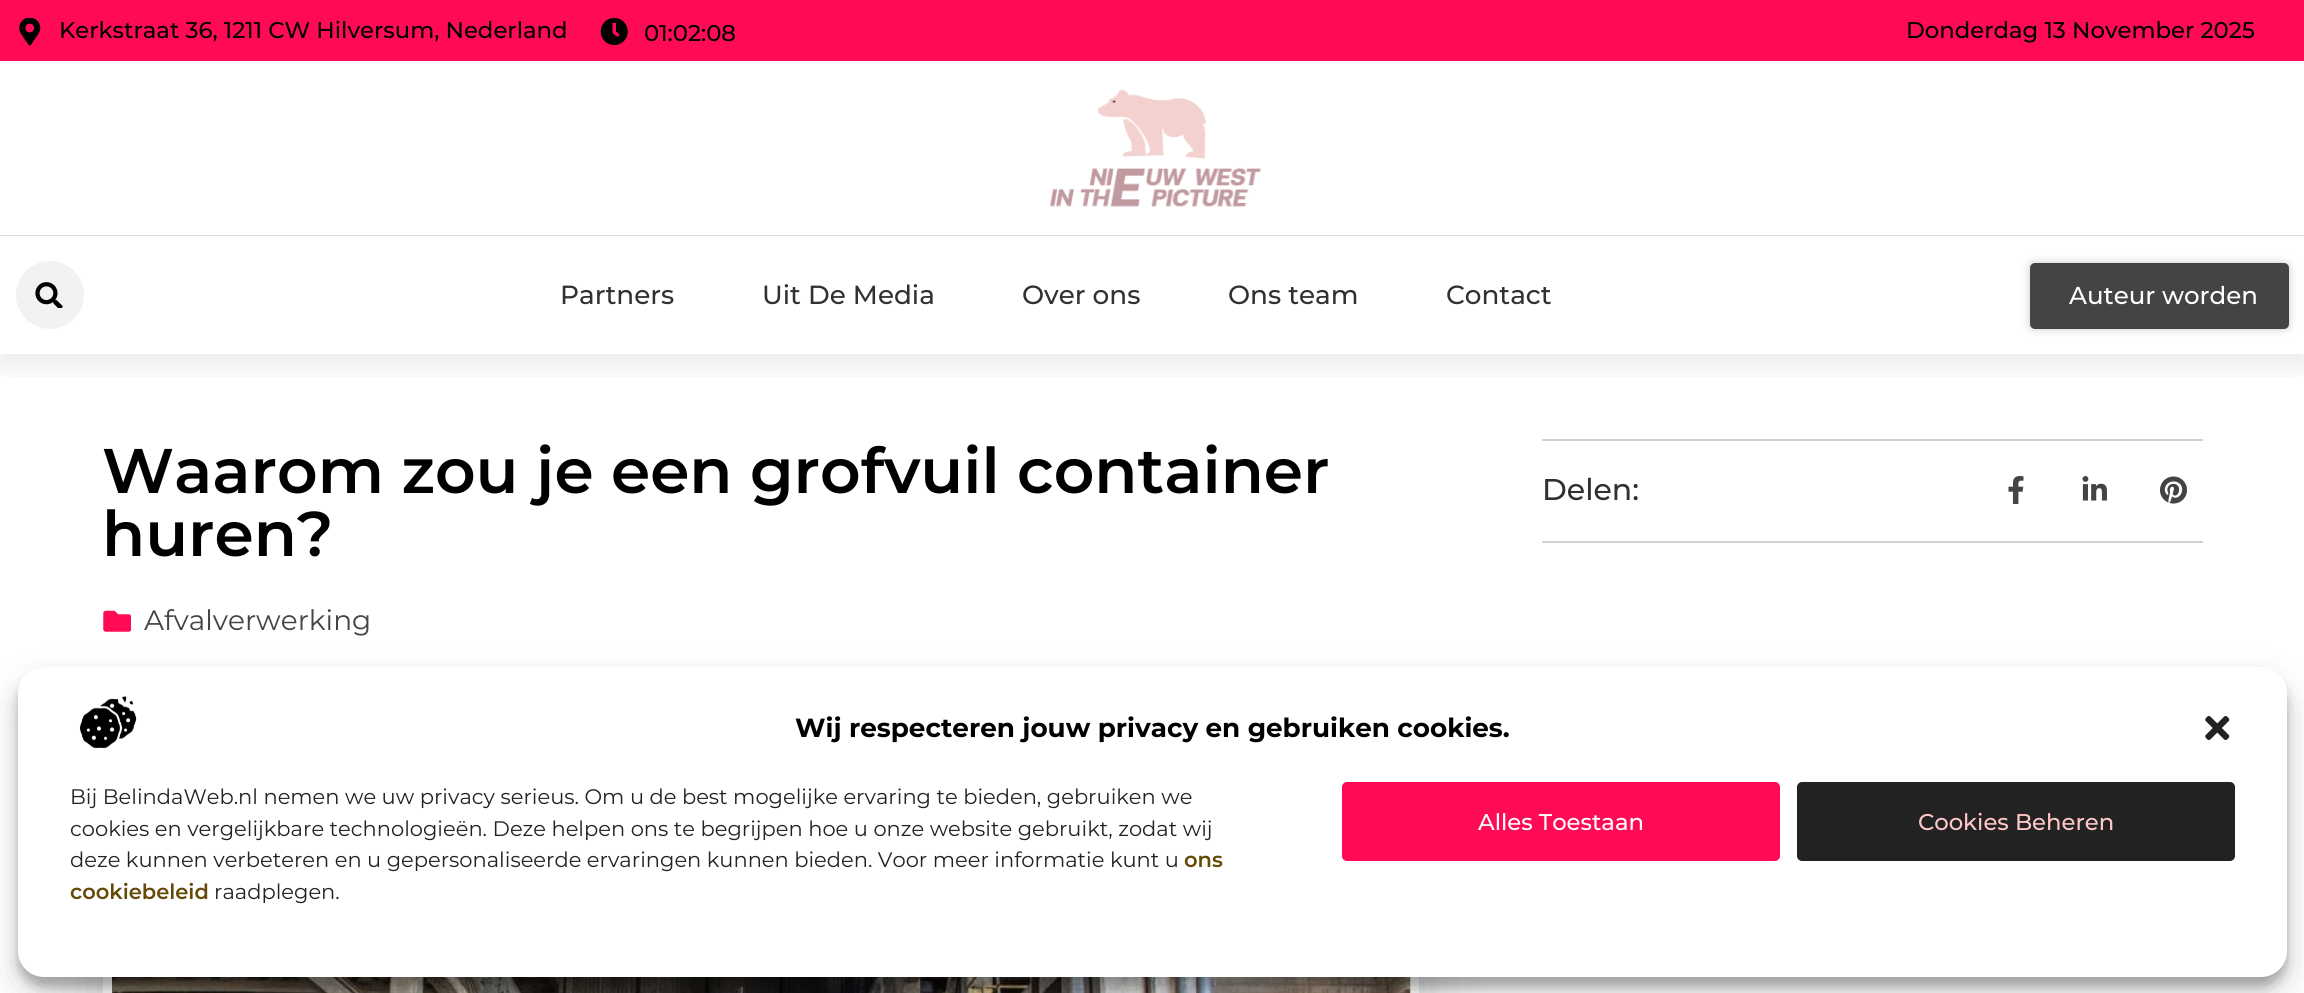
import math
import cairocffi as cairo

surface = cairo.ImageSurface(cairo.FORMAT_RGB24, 2304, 993)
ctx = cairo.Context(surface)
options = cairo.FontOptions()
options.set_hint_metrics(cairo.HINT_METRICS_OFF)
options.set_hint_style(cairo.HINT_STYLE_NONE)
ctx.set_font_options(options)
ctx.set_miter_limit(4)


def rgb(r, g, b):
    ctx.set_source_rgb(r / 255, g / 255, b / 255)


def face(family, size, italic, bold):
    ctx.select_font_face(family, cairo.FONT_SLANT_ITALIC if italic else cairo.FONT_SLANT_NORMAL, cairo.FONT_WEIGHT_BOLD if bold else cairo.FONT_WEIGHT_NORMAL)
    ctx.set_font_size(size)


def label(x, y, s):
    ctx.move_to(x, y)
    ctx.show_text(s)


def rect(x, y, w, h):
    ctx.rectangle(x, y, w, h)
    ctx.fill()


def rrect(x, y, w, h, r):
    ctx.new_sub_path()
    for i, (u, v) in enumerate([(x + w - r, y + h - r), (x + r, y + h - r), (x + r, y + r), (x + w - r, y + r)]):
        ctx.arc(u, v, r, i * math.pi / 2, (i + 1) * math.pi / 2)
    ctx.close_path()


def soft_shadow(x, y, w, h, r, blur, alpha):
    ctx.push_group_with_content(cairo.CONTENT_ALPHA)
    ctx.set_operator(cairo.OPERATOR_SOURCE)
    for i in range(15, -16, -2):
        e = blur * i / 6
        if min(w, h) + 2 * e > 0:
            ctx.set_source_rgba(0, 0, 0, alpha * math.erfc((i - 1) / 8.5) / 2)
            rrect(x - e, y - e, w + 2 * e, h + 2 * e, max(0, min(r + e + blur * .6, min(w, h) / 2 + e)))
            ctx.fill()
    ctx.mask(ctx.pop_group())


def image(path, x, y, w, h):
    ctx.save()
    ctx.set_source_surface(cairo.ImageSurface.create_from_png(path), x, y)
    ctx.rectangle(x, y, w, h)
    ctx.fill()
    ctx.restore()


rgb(255, 255, 255)
ctx.paint()
ctx.save()
ctx.rectangle(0, 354, 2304, 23)
ctx.clip()
rgb(0, 0, 0)
soft_shadow(0, 9, 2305, 353, 0, 17.5, 0.1)
ctx.restore()
rgb(255, 11, 85)
rect(0, 0, 2304, 61)
image('image0.png', 19, 18, 22, 28)
face('Montserrat Medium', 22.75, 0, 0)
rgb(0, 0, 0)
label(59, 38, 'Kerkstraat 36, 1211 CW Hilversum, Nederland')
image('image1.png', 600, 18, 28, 28)
label(644, 41, '01:02:08')
label(1906, 38, 'Donderdag 13 November 2025')
rgb(221, 220, 220)
rect(0, 235, 2304, 1)
image('image2.png', 1050, 89, 212, 118)
rgb(255, 255, 255)
rect(0, 353, 2304, 1)
rgb(242, 242, 242)
ctx.arc(50, 295, 34, 0, 2 * math.pi)
ctx.fill()
image('image3.png', 35, 282, 28, 26)
face('Montserrat Medium', 26.25, 0, 0)
rgb(49, 49, 49)
label(560, 304, 'Partners')
label(762, 304, 'Uit De Media')
label(1022, 304, 'Over ons')
label(1228, 304, 'Ons team')
label(1446, 304, 'Contact')
rgb(0, 0, 0)
soft_shadow(2030, 263, 259, 66, 5, 4.5, 0.22)
rgb(68, 68, 68)
rrect(2030, 263, 259, 66, 5)
ctx.fill()
face('Montserrat Medium', 24.5, 0, 0)
rgb(255, 255, 255)
label(2069, 304, 'Auteur worden')
face('Montserrat SemiBold', 63, 0, 0)
rgb(0, 0, 0)
label(102, 493, 'Waarom zou je een grofvuil container')
label(102, 556, 'huren?')
image('image4.png', 103, 610, 28, 22)
face('Montserrat', 28, 0, 0)
rgb(68, 68, 68)
label(144, 630, 'Afvalverwerking')
rgb(0, 0, 0)
soft_shadow(103, 765, 1316, 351, 18, 35, 0.16)
ctx.rectangle(107.5, 769.5, 1307, 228)
rgb(255, 255, 255)
ctx.set_line_width(9)
ctx.stroke()
image('image5.png', 112, 977, 1299, 16)
rgb(208, 208, 217)
rect(1542, 439, 661, 2)
rect(1542, 541, 661, 2)
face('Montserrat Medium', 30, 0, 0)
rgb(49, 49, 49)
label(1542, 500, 'Delen:')
image('image6.png', 2008, 476, 16, 28)
image('image7.png', 2082, 476, 25, 25)
image('image8.png', 2160, 476, 27, 28)
rgb(0, 0, 0)
soft_shadow(18, 677, 2269, 310, 26, 5, 0.23)
soft_shadow(18, 684, 2269, 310, 26, 17.5, 0.19)
rgb(255, 255, 255)
rrect(18, 667, 2269, 310, 26)
ctx.fill()
image('image9.png', 79, 696, 58, 53)
face('Montserrat', 26.25, 0, 1)
rgb(0, 0, 0)
label(795, 737, 'Wij respecteren jouw privacy en gebruiken cookies.')
image('image10.png', 2205, 716, 25, 24)
face('Montserrat', 21, 0, 0)
rgb(34, 34, 34)
label(70, 804, 'Bij BelindaWeb.nl nemen we uw privacy serieus. Om u de best mogelijke ervaring te bieden, gebruiken we')
label(70, 836, 'cookies en vergelijkbare technologieën. Deze helpen ons te begrijpen hoe u onze website gebruikt, zodat wij')
label(70, 867, 'deze kunnen verbeteren en u gepersonaliseerde ervaringen kunnen bieden. Voor meer informatie kunt u')
face('Montserrat SemiBold', 21, 0, 0)
rgb(100, 74, 7)
label(1184, 867, 'ons')
label(70, 899, 'cookiebeleid')
face('Montserrat', 21, 0, 0)
rgb(34, 34, 34)
label(214, 899, 'raadplegen.')
rgb(255, 11, 85)
rrect(1343, 783, 436, 77, 4)
ctx.fill_preserve()
ctx.set_line_width(2)
ctx.stroke()
face('Montserrat Medium', 22.75, 0, 0)
rgb(255, 255, 255)
label(1478, 830, 'Alles Toestaan')
rgb(34, 34, 34)
rrect(1798, 783, 436, 77, 4)
ctx.fill_preserve()
ctx.stroke()
rgb(255, 198, 198)
label(1918, 830, 'Cookies Beheren')
surface.write_to_png('render.png')
